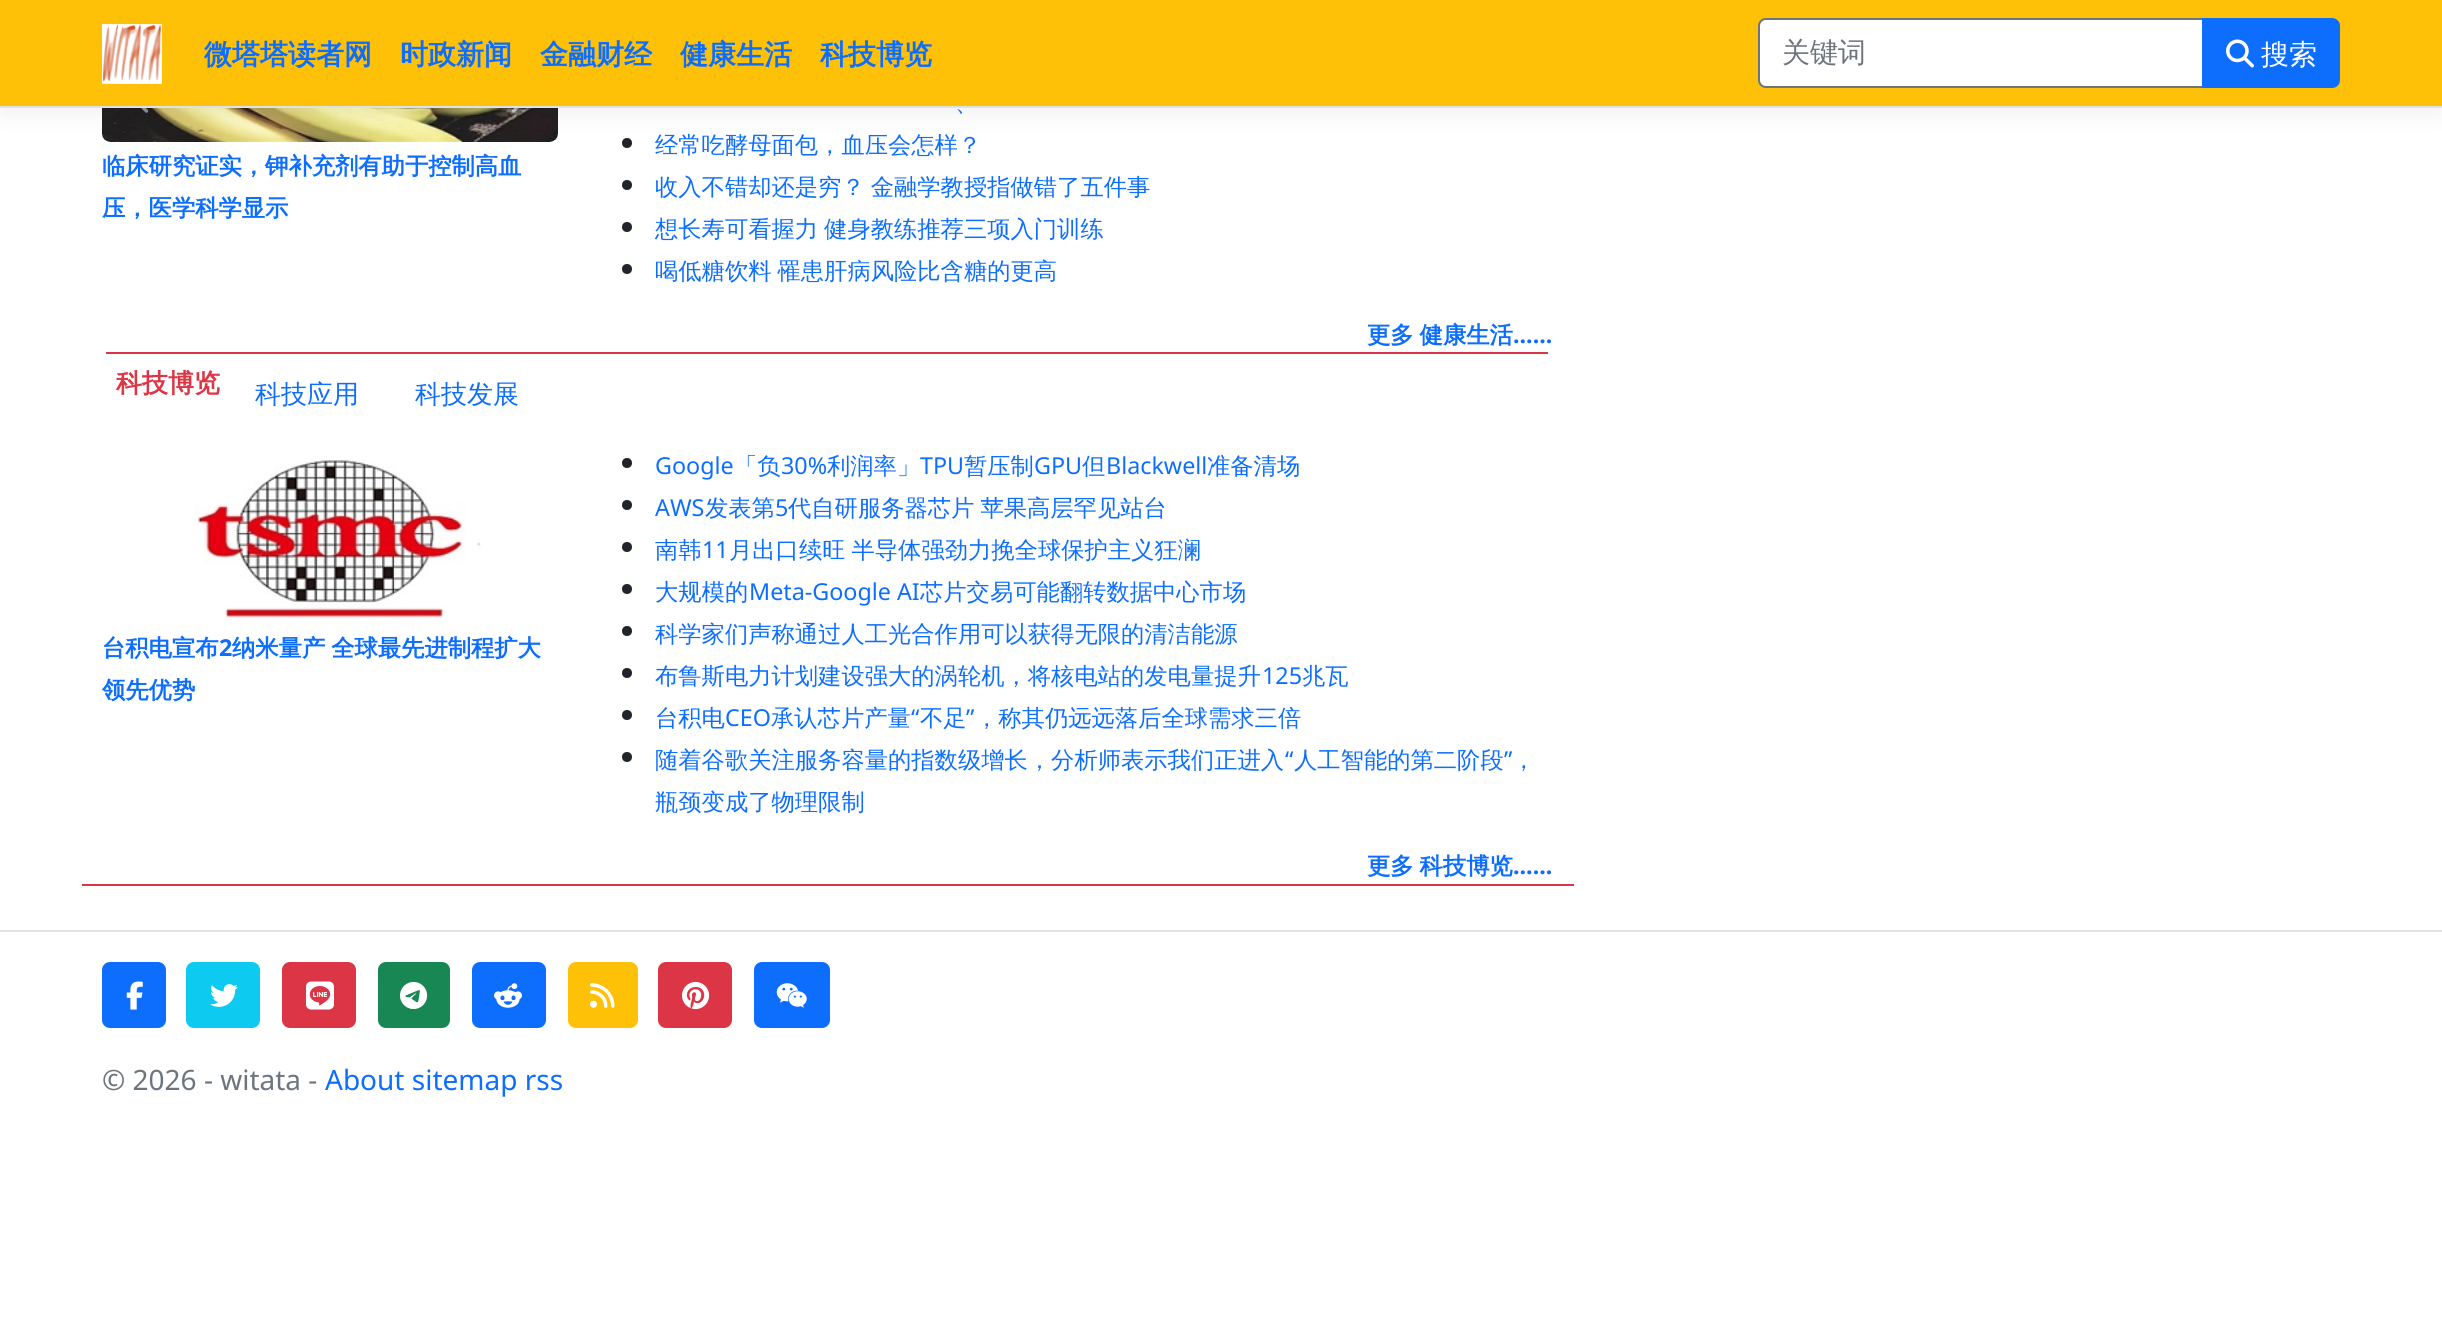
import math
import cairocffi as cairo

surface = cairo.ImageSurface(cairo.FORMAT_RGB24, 2442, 1330)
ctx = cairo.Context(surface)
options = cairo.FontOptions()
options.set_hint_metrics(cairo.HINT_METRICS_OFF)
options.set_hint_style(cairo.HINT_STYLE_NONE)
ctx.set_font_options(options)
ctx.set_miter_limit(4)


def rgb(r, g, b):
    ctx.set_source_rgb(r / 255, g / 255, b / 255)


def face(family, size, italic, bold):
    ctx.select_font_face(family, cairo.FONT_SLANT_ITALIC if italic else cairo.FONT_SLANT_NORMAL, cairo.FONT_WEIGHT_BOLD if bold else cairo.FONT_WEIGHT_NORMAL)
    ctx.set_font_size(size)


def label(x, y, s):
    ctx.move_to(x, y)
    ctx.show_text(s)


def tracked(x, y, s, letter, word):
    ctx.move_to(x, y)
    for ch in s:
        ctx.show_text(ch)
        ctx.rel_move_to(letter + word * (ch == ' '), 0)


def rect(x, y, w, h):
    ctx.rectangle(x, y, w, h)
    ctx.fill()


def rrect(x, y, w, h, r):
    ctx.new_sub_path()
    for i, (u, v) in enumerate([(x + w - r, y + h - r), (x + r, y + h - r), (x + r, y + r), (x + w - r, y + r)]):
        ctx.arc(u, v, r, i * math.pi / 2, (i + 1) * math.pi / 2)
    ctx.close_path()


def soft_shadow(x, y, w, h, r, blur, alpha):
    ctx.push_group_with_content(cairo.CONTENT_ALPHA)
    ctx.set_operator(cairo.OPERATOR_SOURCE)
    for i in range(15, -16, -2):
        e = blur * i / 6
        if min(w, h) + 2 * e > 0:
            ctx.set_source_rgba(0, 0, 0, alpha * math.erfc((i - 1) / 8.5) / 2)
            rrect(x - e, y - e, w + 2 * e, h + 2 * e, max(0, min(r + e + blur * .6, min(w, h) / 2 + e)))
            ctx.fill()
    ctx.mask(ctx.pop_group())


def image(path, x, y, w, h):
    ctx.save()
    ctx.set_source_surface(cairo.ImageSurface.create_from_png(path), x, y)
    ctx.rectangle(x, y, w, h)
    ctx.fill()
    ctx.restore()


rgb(255, 255, 255)
ctx.paint()
image('image4.png', 102, 108, 456, 34)
image('image2.png', 141, 108, 8, 5)
image('image3.png', 511, 108, 8, 5)
rgb(33, 37, 41)
ctx.arc(627, 143, 5, 0, 2 * math.pi)
ctx.fill()
rgb(0, 0, 0)
soft_shadow(0, 8, 2442, 108, 0, 10.5, 0.05)
rgb(255, 193, 7)
rect(0, 0, 2442, 106)
rgb(222, 226, 230)
rect(0, 106, 2442, 2)
image('image0.png', 102, 24, 60, 60)
face('WenQuanYi Zen Hei', 28, 0, 1)
rgb(13, 110, 253)
label(204, 64, '微塔塔读者网')
label(400, 64, '时政新闻')
label(540, 64, '金融财经')
label(680, 64, '健康生活')
label(820, 64, '科技博览')
rgb(255, 255, 255)
ctx.new_path()
ctx.move_to(1765, 20)
ctx.line_to(2202, 20)
ctx.line_to(2202, 86)
ctx.line_to(1765, 86)
ctx.curve_to(1762, 86, 1760, 84, 1760, 81)
ctx.line_to(1760, 25)
ctx.curve_to(1760, 22, 1762, 20, 1765, 20)
ctx.close_path()
ctx.fill()
ctx.new_path()
ctx.move_to(1766, 19)
ctx.line_to(2203, 19)
ctx.line_to(2203, 87)
ctx.line_to(1766, 87)
ctx.curve_to(1762, 87, 1759, 84, 1759, 80)
ctx.line_to(1759, 26)
ctx.curve_to(1759, 22, 1762, 19, 1766, 19)
ctx.close_path()
rgb(108, 117, 125)
ctx.stroke()
face('WenQuanYi Zen Hei Medium', 28, 0, 0)
label(1782, 62, '关键词')
rgb(13, 110, 253)
ctx.new_path()
ctx.move_to(2203, 19)
ctx.line_to(2332, 19)
ctx.curve_to(2336, 19, 2339, 22, 2339, 26)
ctx.line_to(2339, 80)
ctx.curve_to(2339, 84, 2336, 87, 2332, 87)
ctx.line_to(2203, 87)
ctx.close_path()
ctx.fill_preserve()
ctx.stroke()
image('image1.png', 2226, 39, 28, 29)
rgb(255, 255, 255)
label(2261, 64, '搜索')
rgb(220, 53, 69)
rect(82, 884, 1492, 2)
face('WenQuanYi Zen Hei', 23.3, 0, 1)
rgb(13, 110, 253)
label(102, 174, '临床研究证实，钾补充剂有助于控制高血')
label(102, 216, '压，医学科学显示')
face('WenQuanYi Zen Hei Medium', 23.3, 0, 0)
tracked(955, 111, '、', 0, -1)
label(655, 153, '经常吃酵母面包，血压会怎样？')
rgb(33, 37, 41)
ctx.new_path()
ctx.arc(627, 185, 5, 0, 2 * math.pi)
ctx.fill()
rgb(13, 110, 253)
tracked(655, 195, '收入不错却还是穷？ 金融学教授指做错了五件事', 0, -1)
rgb(33, 37, 41)
ctx.new_path()
ctx.arc(627, 227, 5, 0, 2 * math.pi)
ctx.fill()
rgb(13, 110, 253)
tracked(655, 237, '想长寿可看握力 健身教练推荐三项入门训练', 0, -1)
rgb(33, 37, 41)
ctx.new_path()
ctx.arc(627, 269, 5, 0, 2 * math.pi)
ctx.fill()
rgb(13, 110, 253)
tracked(655, 279, '喝低糖饮料 罹患肝病风险比含糖的更高', 0, -1)
face('WenQuanYi Zen Hei', 23.3, 0, 1)
tracked(1367, 343, '更多 健康生活', 0, -1)
face('Noto Sans', 23.3, 0, 1)
label(1513, 343, '......')
rgb(220, 53, 69)
rect(106, 352, 1442, 2)
face('WenQuanYi Zen Hei', 26, 0, 1)
label(116, 392, '科技博览')
face('WenQuanYi Zen Hei Medium', 26, 0, 0)
rgb(13, 110, 253)
label(255, 403, '科技应用')
label(415, 403, '科技发展')
image('image5.png', 195, 460, 286, 161)
face('WenQuanYi Zen Hei', 23.3, 0, 1)
label(102, 656, '台积电宣布')
face('Noto Sans', 23.3, 0, 1)
label(219, 656, '2')
face('WenQuanYi Zen Hei', 23.3, 0, 1)
tracked(232, 656, '纳米量产 全球最先进制程扩大', 0, -1)
label(102, 698, '领先优势')
rgb(33, 37, 41)
ctx.new_path()
ctx.arc(627, 463, 5, 0, 2 * math.pi)
ctx.fill()
face('Noto Sans', 23.3, 0, 0)
rgb(13, 110, 253)
label(655, 474, 'Google')
face('WenQuanYi Zen Hei Medium', 23.3, 0, 0)
label(734, 474, '「负')
face('Noto Sans', 23.3, 0, 0)
label(781, 474, '30%')
face('WenQuanYi Zen Hei Medium', 23.3, 0, 0)
label(827, 474, '利润率」')
face('Noto Sans', 23.3, 0, 0)
label(920, 474, 'TPU')
face('WenQuanYi Zen Hei Medium', 23.3, 0, 0)
label(964, 474, '暂压制')
face('Noto Sans', 23.3, 0, 0)
label(1034, 474, 'GPU')
face('WenQuanYi Zen Hei Medium', 23.3, 0, 0)
label(1082, 474, '但')
face('Noto Sans', 23.3, 0, 0)
label(1106, 474, 'Blackwell')
face('WenQuanYi Zen Hei Medium', 23.3, 0, 0)
label(1207, 474, '准备清场')
rgb(33, 37, 41)
ctx.new_path()
ctx.arc(627, 505, 5, 0, 2 * math.pi)
ctx.fill()
face('Noto Sans', 23.3, 0, 0)
rgb(13, 110, 253)
label(655, 516, 'AWS')
face('WenQuanYi Zen Hei Medium', 23.3, 0, 0)
label(705, 516, '发表第')
face('Noto Sans', 23.3, 0, 0)
label(775, 516, '5')
face('WenQuanYi Zen Hei Medium', 23.3, 0, 0)
tracked(788, 516, '代自研服务器芯片 苹果高层罕见站台', 0, -1)
rgb(33, 37, 41)
ctx.new_path()
ctx.arc(627, 547, 5, 0, 2 * math.pi)
ctx.fill()
rgb(13, 110, 253)
label(655, 558, '南韩')
face('Noto Sans', 23.3, 0, 0)
label(702, 558, '11')
face('WenQuanYi Zen Hei Medium', 23.3, 0, 0)
tracked(729, 558, '月出口续旺 半导体强劲力挽全球保护主义狂澜', 0, -1)
rgb(33, 37, 41)
ctx.new_path()
ctx.arc(627, 589, 5, 0, 2 * math.pi)
ctx.fill()
rgb(13, 110, 253)
label(655, 600, '大规模的')
face('Noto Sans', 23.3, 0, 0)
label(749, 600, 'Meta-Google AI')
face('WenQuanYi Zen Hei Medium', 23.3, 0, 0)
label(920, 600, '芯片交易可能翻转数据中心市场')
rgb(33, 37, 41)
ctx.new_path()
ctx.arc(627, 631, 5, 0, 2 * math.pi)
ctx.fill()
rgb(13, 110, 253)
label(655, 642, '科学家们声称通过人工光合作用可以获得无限的清洁能源')
rgb(33, 37, 41)
ctx.new_path()
ctx.arc(627, 673, 5, 0, 2 * math.pi)
ctx.fill()
rgb(13, 110, 253)
label(655, 684, '布鲁斯电力计划建设强大的涡轮机，将核电站的发电量提升')
face('Noto Sans', 23.3, 0, 0)
label(1262, 684, '125')
face('WenQuanYi Zen Hei Medium', 23.3, 0, 0)
label(1302, 684, '兆瓦')
rgb(33, 37, 41)
ctx.new_path()
ctx.arc(627, 715, 5, 0, 2 * math.pi)
ctx.fill()
rgb(13, 110, 253)
label(655, 726, '台积电')
face('Noto Sans', 23.3, 0, 0)
label(725, 726, 'CEO')
face('WenQuanYi Zen Hei Medium', 23.3, 0, 0)
label(771, 726, '承认芯片产量')
face('Noto Sans', 23.3, 0, 0)
label(911, 726, '“')
face('WenQuanYi Zen Hei Medium', 23.3, 0, 0)
label(920, 726, '不足')
face('Noto Sans', 23.3, 0, 0)
label(966, 726, '”')
face('WenQuanYi Zen Hei Medium', 23.3, 0, 0)
label(975, 726, '，称其仍远远落后全球需求三倍')
rgb(33, 37, 41)
ctx.new_path()
ctx.arc(627, 757, 5, 0, 2 * math.pi)
ctx.fill()
rgb(13, 110, 253)
label(655, 768, '随着谷歌关注服务容量的指数级增长，分析师表示我们正进入')
face('Noto Sans', 23.3, 0, 0)
label(1285, 768, '“')
face('WenQuanYi Zen Hei Medium', 23.3, 0, 0)
label(1294, 768, '人工智能的第二阶段')
face('Noto Sans', 23.3, 0, 0)
label(1504, 768, '”')
face('WenQuanYi Zen Hei Medium', 23.3, 0, 0)
label(1512, 768, '，')
label(655, 810, '瓶颈变成了物理限制')
face('WenQuanYi Zen Hei', 23.3, 0, 1)
tracked(1367, 874, '更多 科技博览', 0, -1)
face('Noto Sans', 23.3, 0, 1)
label(1513, 874, '......')
rgb(222, 226, 230)
rect(0, 930, 2442, 2)
rgb(13, 110, 253)
rrect(103, 963, 62, 64, 7)
ctx.fill_preserve()
ctx.stroke()
image('image6.png', 126, 981, 17, 29)
rgb(13, 202, 240)
rrect(187, 963, 72, 64, 7)
ctx.fill_preserve()
ctx.stroke()
image('image7.png', 210, 984, 28, 23)
rgb(220, 53, 69)
rrect(283, 963, 72, 64, 7)
ctx.fill_preserve()
ctx.stroke()
image('image8.png', 306, 981, 28, 29)
rgb(25, 135, 84)
rrect(379, 963, 70, 64, 7)
ctx.fill_preserve()
ctx.stroke()
image('image9.png', 400, 981, 28, 29)
rgb(13, 110, 253)
rrect(473, 963, 72, 64, 7)
ctx.fill_preserve()
ctx.stroke()
image('image10.png', 494, 983, 28, 25)
rgb(255, 193, 7)
rrect(569, 963, 68, 64, 7)
ctx.fill_preserve()
ctx.stroke()
image('image11.png', 590, 983, 25, 25)
rgb(220, 53, 69)
rrect(659, 963, 72, 64, 7)
ctx.fill_preserve()
ctx.stroke()
image('image12.png', 682, 981, 28, 29)
rgb(13, 110, 253)
rrect(755, 963, 74, 64, 7)
ctx.fill_preserve()
ctx.stroke()
image('image13.png', 776, 983, 31, 25)
face('Noto Sans', 28, 0, 0)
rgb(108, 117, 125)
label(102, 1090, '© 2026 - witata -')
rgb(13, 110, 253)
label(325, 1090, 'About sitemap rss')
surface.write_to_png('render.png')
